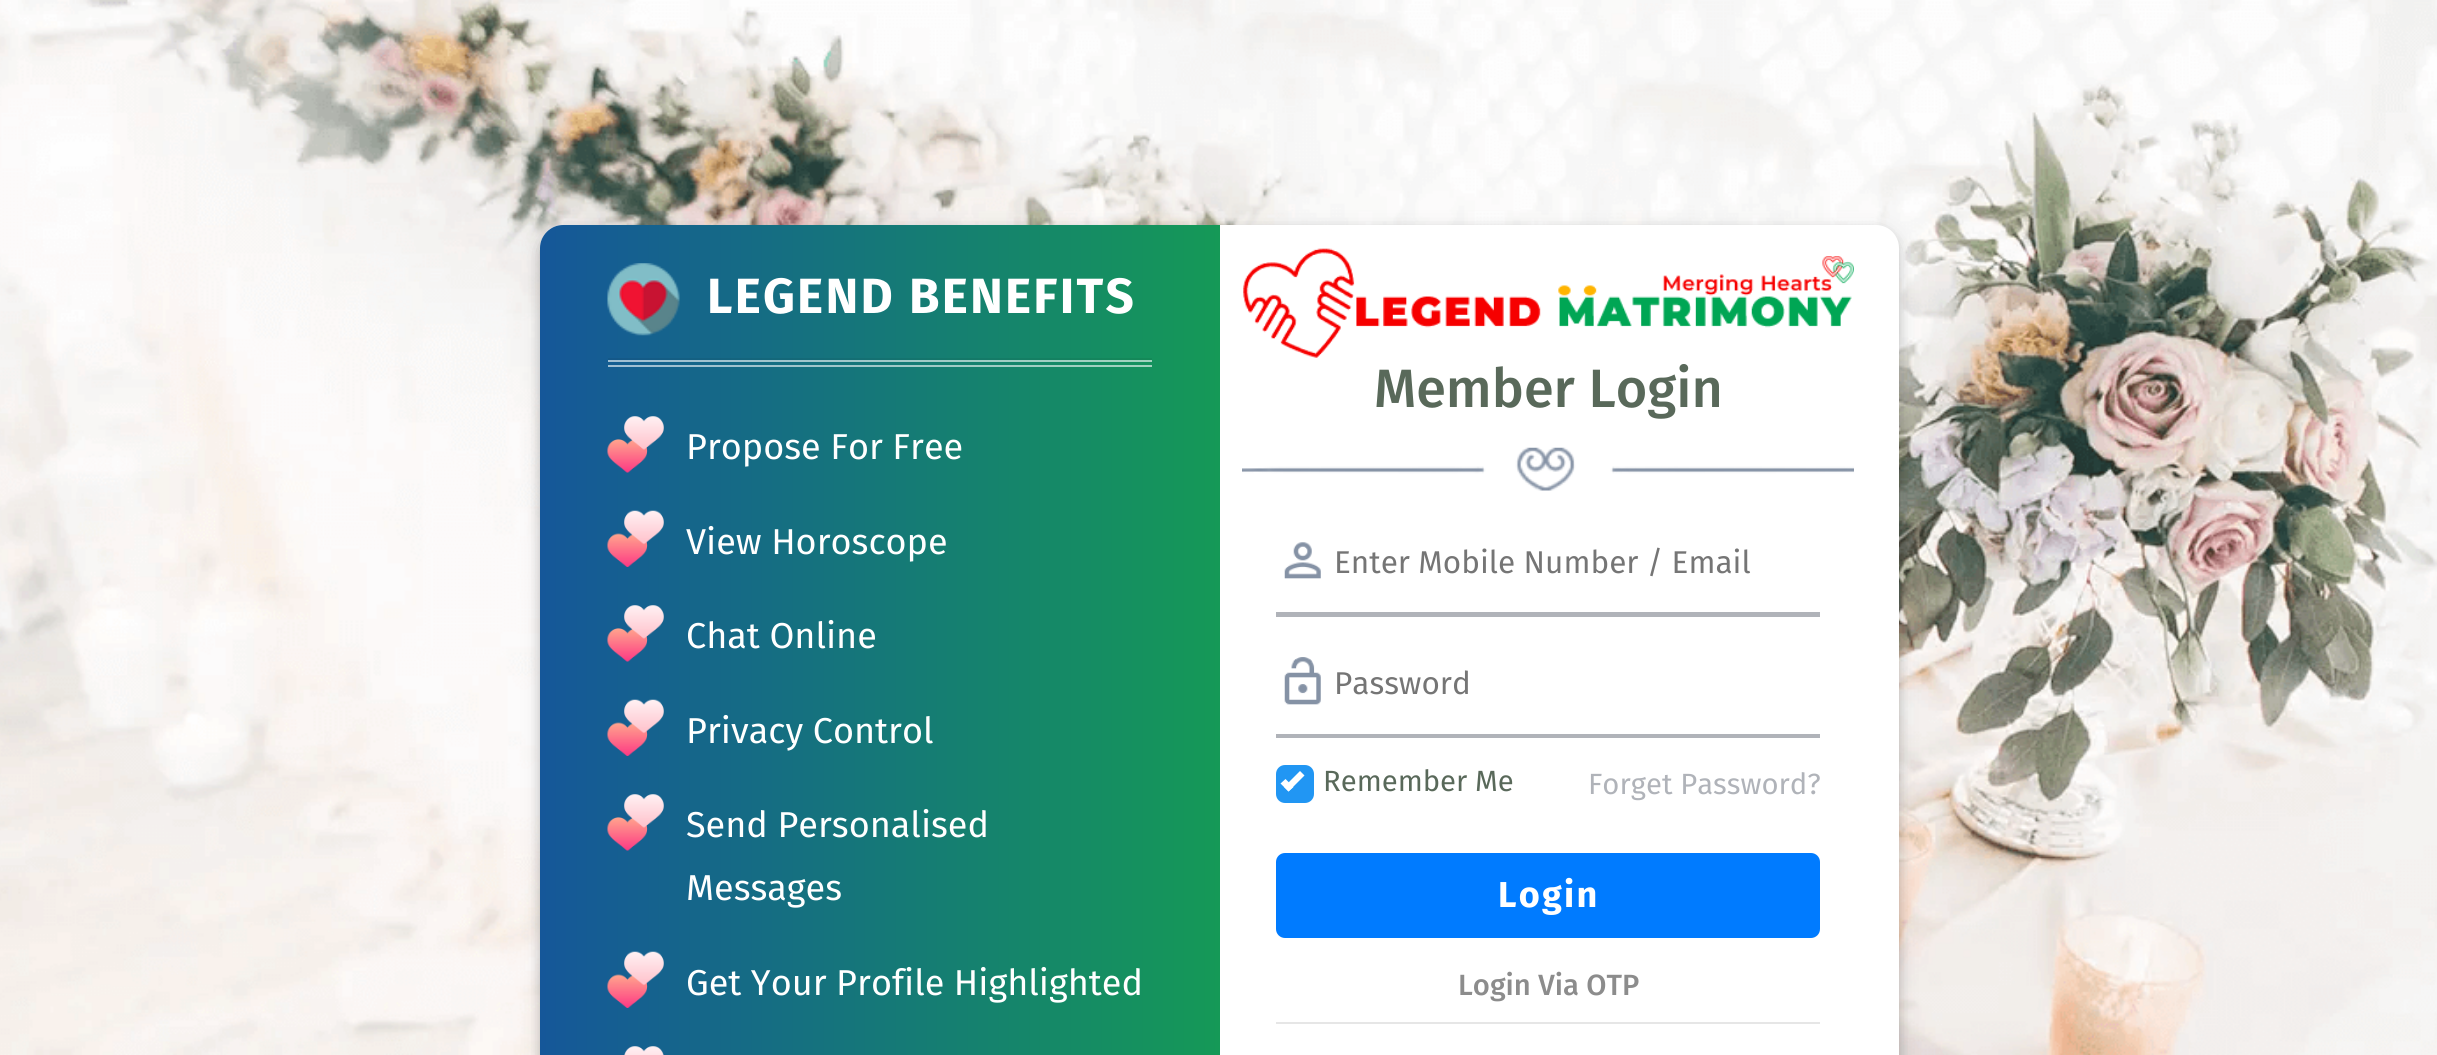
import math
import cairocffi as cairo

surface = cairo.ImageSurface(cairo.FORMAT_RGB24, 2437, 1055)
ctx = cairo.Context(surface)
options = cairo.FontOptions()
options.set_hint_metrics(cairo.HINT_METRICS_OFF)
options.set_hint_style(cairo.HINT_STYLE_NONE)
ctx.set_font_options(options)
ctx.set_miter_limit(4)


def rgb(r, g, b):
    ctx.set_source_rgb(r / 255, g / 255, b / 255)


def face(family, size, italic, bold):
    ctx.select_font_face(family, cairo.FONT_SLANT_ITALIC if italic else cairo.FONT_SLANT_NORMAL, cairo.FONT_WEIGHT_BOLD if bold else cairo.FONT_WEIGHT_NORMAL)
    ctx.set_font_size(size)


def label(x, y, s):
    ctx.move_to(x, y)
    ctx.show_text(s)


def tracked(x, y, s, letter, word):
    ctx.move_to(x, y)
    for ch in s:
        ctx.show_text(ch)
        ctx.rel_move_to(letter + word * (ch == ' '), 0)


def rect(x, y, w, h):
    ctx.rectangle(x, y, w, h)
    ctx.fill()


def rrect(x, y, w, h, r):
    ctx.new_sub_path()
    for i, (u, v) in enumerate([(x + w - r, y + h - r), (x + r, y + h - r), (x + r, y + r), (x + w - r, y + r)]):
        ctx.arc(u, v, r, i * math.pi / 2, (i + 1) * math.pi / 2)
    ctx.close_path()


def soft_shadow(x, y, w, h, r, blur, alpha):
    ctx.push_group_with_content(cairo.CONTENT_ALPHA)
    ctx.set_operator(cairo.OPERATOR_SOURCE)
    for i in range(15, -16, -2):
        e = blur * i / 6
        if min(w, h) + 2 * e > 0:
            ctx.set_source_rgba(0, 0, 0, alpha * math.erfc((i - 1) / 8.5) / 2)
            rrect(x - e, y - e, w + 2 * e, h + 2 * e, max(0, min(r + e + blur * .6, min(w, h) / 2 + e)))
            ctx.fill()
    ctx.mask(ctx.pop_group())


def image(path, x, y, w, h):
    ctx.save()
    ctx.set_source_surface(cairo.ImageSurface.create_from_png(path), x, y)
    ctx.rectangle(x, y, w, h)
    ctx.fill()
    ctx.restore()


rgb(255, 255, 255)
ctx.paint()
image('image0.png', 0, 0, 2437, 1055)
rgb(0, 0, 0)
soft_shadow(540, 230, 1359, 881, 23, 11, 0.12)
soft_shadow(540, 230, 1359, 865, 23, 5.5, 0.16)
rgb(255, 255, 255)
rrect(540, 225, 1359, 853, 23)
ctx.fill()
gradient = cairo.LinearGradient(540, 734, 1220, 734)
gradient.add_color_stop_rgba(0, 0.082, 0.341, 0.6, 1)
gradient.add_color_stop_rgba(1, 0.082, 0.6, 0.341, 1)
ctx.set_source(gradient)
ctx.new_path()
ctx.move_to(563, 225)
ctx.line_to(1220, 225)
ctx.line_to(1220, 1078)
ctx.line_to(563, 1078)
ctx.curve_to(550.5, 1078, 540, 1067.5, 540, 1055)
ctx.line_to(540, 248)
ctx.curve_to(540, 235.5, 550.5, 225, 563, 225)
ctx.close_path()
ctx.fill()
image('image1.png', 607, 263, 73, 73)
face('Fira Sans', 49.5, 0, 1)
rgb(255, 255, 255)
tracked(707, 313, 'LEGEND BENEFITS', 2.25, 0)
ctx.set_source_rgba(0, 0, 0, 0.06)
rect(608, 358, 544, 2)
ctx.set_source_rgba(1, 1, 1, 0.6)
rect(608, 360, 544, 2)
rect(608, 365, 544, 2)
image('image2.png', 607, 416, 57, 57)
face('Fira Sans', 36, 0, 0)
rgb(255, 255, 255)
label(686, 459, 'Propose For Free')
image('image3.png', 607, 510, 57, 57)
label(686, 554, 'View Horoscope')
image('image2.png', 607, 605, 57, 57)
label(686, 648, 'Chat Online')
image('image3.png', 607, 699, 57, 57)
label(686, 743, 'Privacy Control')
image('image2.png', 607, 794, 57, 57)
label(686, 837, 'Send Personalised')
label(686, 900, 'Messages')
image('image3.png', 607, 951, 57, 57)
label(686, 995, 'Get Your Profile Highlighted')
image('image4.png', 624, 1046, 40, 9)
image('image5.png', 1243, 248, 611, 110)
face('Fira Sans Medium', 54, 0, 0)
rgb(89, 105, 90)
label(1374, 407, 'Member Login')
image('image6.png', 1242, 447, 612, 44)
image('image7.png', 1284, 542, 37, 37)
rgb(176, 179, 185)
rect(1276, 612, 544, 5)
face('Fira Sans', 31.5, 0, 0)
rgb(117, 117, 117)
label(1334, 573, 'Enter Mobile Number / Email')
image('image8.png', 1284, 657, 37, 48)
rgb(176, 179, 185)
rect(1276, 734, 544, 4)
rgb(117, 117, 117)
label(1334, 694, 'Password')
rgb(33, 150, 243)
rrect(1277, 766, 36, 36, 8)
ctx.fill_preserve()
ctx.stroke()
rgb(255, 255, 255)
ctx.new_path()
ctx.move_to(1300, 771)
ctx.line_to(1304.5, 775.5)
ctx.line_to(1288.5, 791.5)
ctx.line_to(1284, 787)
ctx.close_path()
ctx.fill()
ctx.new_path()
ctx.move_to(1285.5, 779)
ctx.line_to(1293.5, 787)
ctx.line_to(1288.5, 791.5)
ctx.line_to(1280.5, 783.5)
ctx.close_path()
ctx.fill()
face('Fira Sans', 29.25, 0, 0)
rgb(89, 105, 90)
label(1323, 791, 'Remember Me')
rgb(176, 179, 185)
label(1588, 794, 'Forget Password?')
rgb(0, 123, 255)
rrect(1277, 854, 542, 83, 8)
ctx.fill_preserve()
ctx.stroke()
face('Fira Sans', 36, 0, 1)
rgb(255, 255, 255)
tracked(1498, 907, 'Login', 2.25, 0)
face('Fira Sans Medium', 29.25, 0, 0)
rgb(140, 140, 140)
label(1458, 995, 'Login Via OTP')
rgb(230, 230, 230)
rect(1276, 1022, 544, 2)
surface.write_to_png('render.png')
